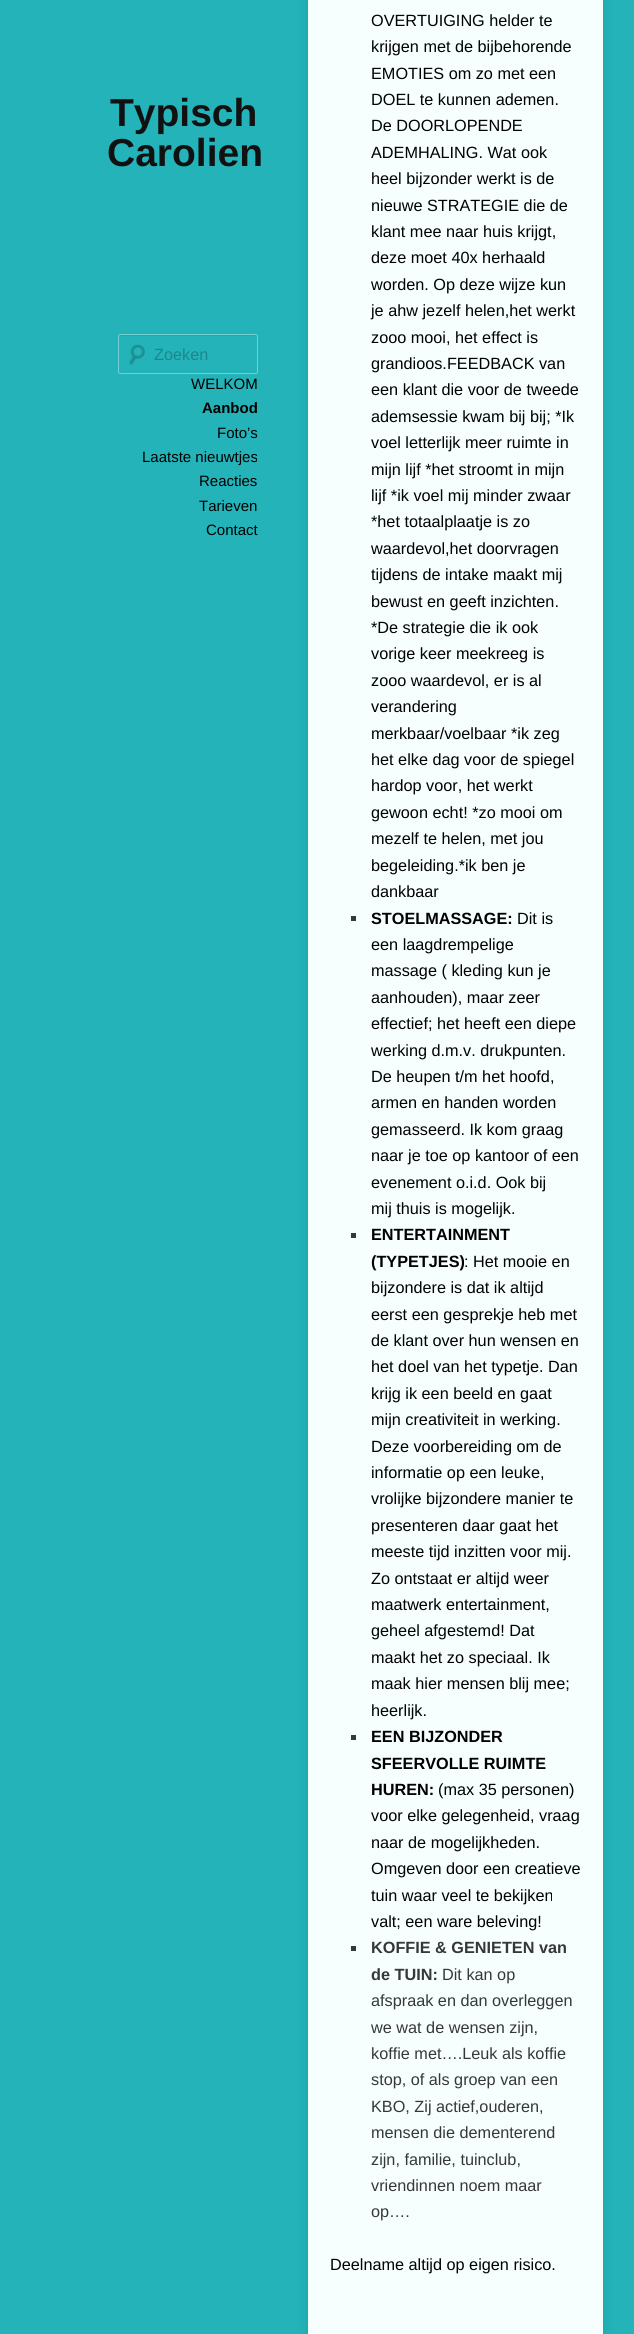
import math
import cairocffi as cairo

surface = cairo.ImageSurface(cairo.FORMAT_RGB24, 634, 2334)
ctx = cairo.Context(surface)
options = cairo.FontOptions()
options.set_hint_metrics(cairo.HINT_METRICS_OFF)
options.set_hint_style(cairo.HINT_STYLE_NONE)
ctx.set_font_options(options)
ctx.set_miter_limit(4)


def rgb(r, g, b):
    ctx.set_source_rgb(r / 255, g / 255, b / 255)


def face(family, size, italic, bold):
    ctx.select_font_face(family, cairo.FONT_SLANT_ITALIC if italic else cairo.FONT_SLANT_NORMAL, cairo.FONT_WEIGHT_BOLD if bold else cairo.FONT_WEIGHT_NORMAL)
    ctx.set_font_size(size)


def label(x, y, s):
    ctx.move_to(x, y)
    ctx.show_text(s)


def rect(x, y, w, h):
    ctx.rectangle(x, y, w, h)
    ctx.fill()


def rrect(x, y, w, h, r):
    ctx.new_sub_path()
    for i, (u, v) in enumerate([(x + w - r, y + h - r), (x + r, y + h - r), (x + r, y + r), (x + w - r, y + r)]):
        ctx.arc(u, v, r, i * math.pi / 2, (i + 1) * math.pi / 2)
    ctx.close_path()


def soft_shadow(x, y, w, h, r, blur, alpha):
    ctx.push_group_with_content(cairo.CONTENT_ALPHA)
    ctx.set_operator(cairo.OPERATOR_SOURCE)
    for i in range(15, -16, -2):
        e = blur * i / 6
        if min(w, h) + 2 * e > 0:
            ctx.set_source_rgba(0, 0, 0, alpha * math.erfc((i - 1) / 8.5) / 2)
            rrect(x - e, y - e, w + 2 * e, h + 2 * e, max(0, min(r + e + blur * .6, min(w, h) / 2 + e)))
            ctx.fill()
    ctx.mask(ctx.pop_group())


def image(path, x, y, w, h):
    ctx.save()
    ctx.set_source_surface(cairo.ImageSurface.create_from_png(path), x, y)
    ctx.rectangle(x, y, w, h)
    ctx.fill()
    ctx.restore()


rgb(35, 179, 185)
ctx.paint()
face('Liberation Sans', 39, 0, 1)
rgb(17, 17, 17)
label(110, 126, 'Typisch')
label(107, 166, 'Carolien')
image('image0.png', 129, 344, 16, 21)
rgb(33, 168, 174)
ctx.new_path()
ctx.move_to(120, 336)
ctx.line_to(255, 336)
ctx.curve_to(256, 336, 256, 337, 256, 338)
ctx.curve_to(256, 337, 256, 336, 255, 335)
ctx.line_to(120, 335)
ctx.curve_to(119, 335, 119, 337, 119, 338)
ctx.curve_to(119, 337, 119, 336, 120, 336)
ctx.close_path()
ctx.fill()
rrect(118.5, 334.5, 139, 39, 2)
rgb(114, 207, 210)
ctx.set_line_width(1)
ctx.stroke()
face('Liberation Sans', 16.25, 0, 0)
rgb(27, 136, 141)
label(154, 360, 'Zoeken')
face('Liberation Sans', 15, 0, 0)
rgb(0, 0, 0)
label(191, 389, 'WELKOM')
face('Liberation Sans', 15, 0, 1)
label(202, 413, 'Aanbod')
face('Liberation Sans', 15, 0, 0)
label(217, 438, 'Foto’s')
label(142, 462, 'Laatste nieuwtjes')
label(199, 486, 'Reacties')
label(199, 511, 'Tarieven')
label(206, 535, 'Contact')
rgb(0, 0, 0)
soft_shadow(308, -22, 295, 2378, 4, 6, 0.1)
rgb(246, 254, 254)
rect(308, 0, 295, 2334)
face('Liberation Sans', 16.25, 0, 0)
rgb(0, 0, 0)
label(371, 26, 'OVERTUIGING helder te')
label(371, 52, 'krijgen met de bijbehorende')
label(371, 79, 'EMOTIES om zo met een')
label(371, 105, 'DOEL te kunnen ademen.')
label(371, 131, 'De DOORLOPENDE')
label(371, 158, 'ADEMHALING. Wat ook')
label(371, 184, 'heel bijzonder werkt is de')
label(371, 211, 'nieuwe STRATEGIE die de')
label(371, 237, 'klant mee naar huis krijgt,')
label(371, 263, 'deze moet 40x herhaald')
label(371, 290, 'worden. Op deze wijze kun')
label(371, 316, 'je ahw jezelf helen,het werkt')
label(371, 343, 'zooo mooi, het effect is')
label(371, 369, 'grandioos.FEEDBACK van')
label(371, 395, 'een klant die voor de tweede')
label(371, 422, 'ademsessie kwam bij bij; *Ik')
label(371, 448, 'voel letterlijk meer ruimte in')
label(371, 475, 'mijn lijf *het stroomt in mijn')
label(371, 501, 'lijf *ik voel mij minder zwaar')
label(371, 527, '*het totaalplaatje is zo')
label(371, 554, 'waardevol,het doorvragen')
label(371, 580, 'tijdens de intake maakt mij')
label(371, 607, 'bewust en geeft inzichten.')
label(371, 633, '*De strategie die ik ook')
label(371, 659, 'vorige keer meekreeg is')
label(371, 686, 'zooo waardevol, er is al')
label(371, 712, 'verandering')
label(371, 739, 'merkbaar/voelbaar *ik zeg')
label(371, 765, 'het elke dag voor de spiegel')
label(371, 791, 'hardop voor, het werkt')
label(371, 818, 'gewoon echt! *zo mooi om')
label(371, 844, 'mezelf te helen, met jou')
label(371, 871, 'begeleiding.*ik ben je')
label(371, 897, 'dankbaar')
rgb(55, 55, 55)
rect(351, 916, 5, 5)
face('Liberation Sans', 16.25, 0, 1)
rgb(0, 0, 0)
label(371, 924, 'STOELMASSAGE:')
face('Liberation Sans', 16.25, 0, 0)
label(517, 924, 'Dit is')
label(371, 950, 'een laagdrempelige')
label(371, 976, 'massage ( kleding kun je')
label(371, 1003, 'aanhouden), maar zeer')
label(371, 1029, 'effectief; het heeft een diepe')
label(371, 1056, 'werking d.m.v. drukpunten.')
label(371, 1082, 'De heupen t/m het hoofd,')
label(371, 1108, 'armen en handen worden')
label(371, 1135, 'gemasseerd. Ik kom graag')
label(371, 1161, 'naar je toe op kantoor of een')
label(371, 1188, 'evenement o.i.d. Ook bij')
label(371, 1214, 'mij thuis is mogelijk.')
rgb(55, 55, 55)
rect(351, 1233, 5, 5)
face('Liberation Sans', 16.25, 0, 1)
rgb(0, 0, 0)
label(371, 1240, 'ENTERTAINMENT')
label(371, 1267, '(TYPETJES)')
face('Liberation Sans', 16.25, 0, 0)
label(464, 1267, ': Het mooie en')
label(371, 1293, 'bijzondere is dat ik altijd')
label(371, 1320, 'eerst een gesprekje heb met')
label(371, 1346, 'de klant over hun wensen en')
label(371, 1372, 'het doel van het typetje. Dan')
label(371, 1399, 'krijg ik een beeld en gaat')
label(371, 1425, 'mijn creativiteit in werking.')
label(371, 1452, 'Deze voorbereiding om de')
label(371, 1478, 'informatie op een leuke,')
label(371, 1504, 'vrolijke bijzondere manier te')
label(371, 1531, 'presenteren daar gaat het')
label(371, 1557, 'meeste tijd inzitten voor mij.')
label(371, 1584, 'Zo ontstaat er altijd weer')
label(371, 1610, 'maatwerk entertainment,')
label(371, 1636, 'geheel afgestemd! Dat')
label(371, 1663, 'maakt het zo speciaal. Ik')
label(371, 1689, 'maak hier mensen blij mee;')
label(371, 1716, 'heerlijk.')
rgb(55, 55, 55)
rect(351, 1735, 5, 5)
face('Liberation Sans', 16.25, 0, 1)
rgb(0, 0, 0)
label(371, 1742, 'EEN BIJZONDER')
label(371, 1769, 'SFEERVOLLE RUIMTE')
label(371, 1795, 'HUREN:')
face('Liberation Sans', 16.25, 0, 0)
label(438, 1795, '(max 35 personen)')
label(371, 1821, 'voor elke gelegenheid, vraag')
label(371, 1848, 'naar de mogelijkheden.')
label(371, 1874, 'Omgeven door een creatieve')
label(371, 1901, 'tuin waar veel te bekijken')
label(371, 1927, 'valt; een ware beleving!')
rgb(55, 55, 55)
rect(351, 1946, 5, 5)
face('Liberation Sans', 16.25, 0, 1)
label(371, 1953, 'KOFFIE & GENIETEN van')
label(371, 1980, 'de TUIN:')
face('Liberation Sans', 16.25, 0, 0)
label(442, 1980, 'Dit kan op')
label(371, 2006, 'afspraak en dan overleggen')
label(371, 2033, 'we wat de wensen zijn,')
label(371, 2059, 'koffie met….Leuk als koffie')
label(371, 2085, 'stop, of als groep van een')
label(371, 2112, 'KBO, Zij actief,ouderen,')
label(371, 2138, 'mensen die dementerend')
label(371, 2165, 'zijn, familie, tuinclub,')
label(371, 2191, 'vriendinnen noem maar')
label(371, 2217, 'op….')
rgb(0, 0, 0)
label(330, 2270, 'Deelname altijd op eigen risico.')
surface.write_to_png('render.png')
